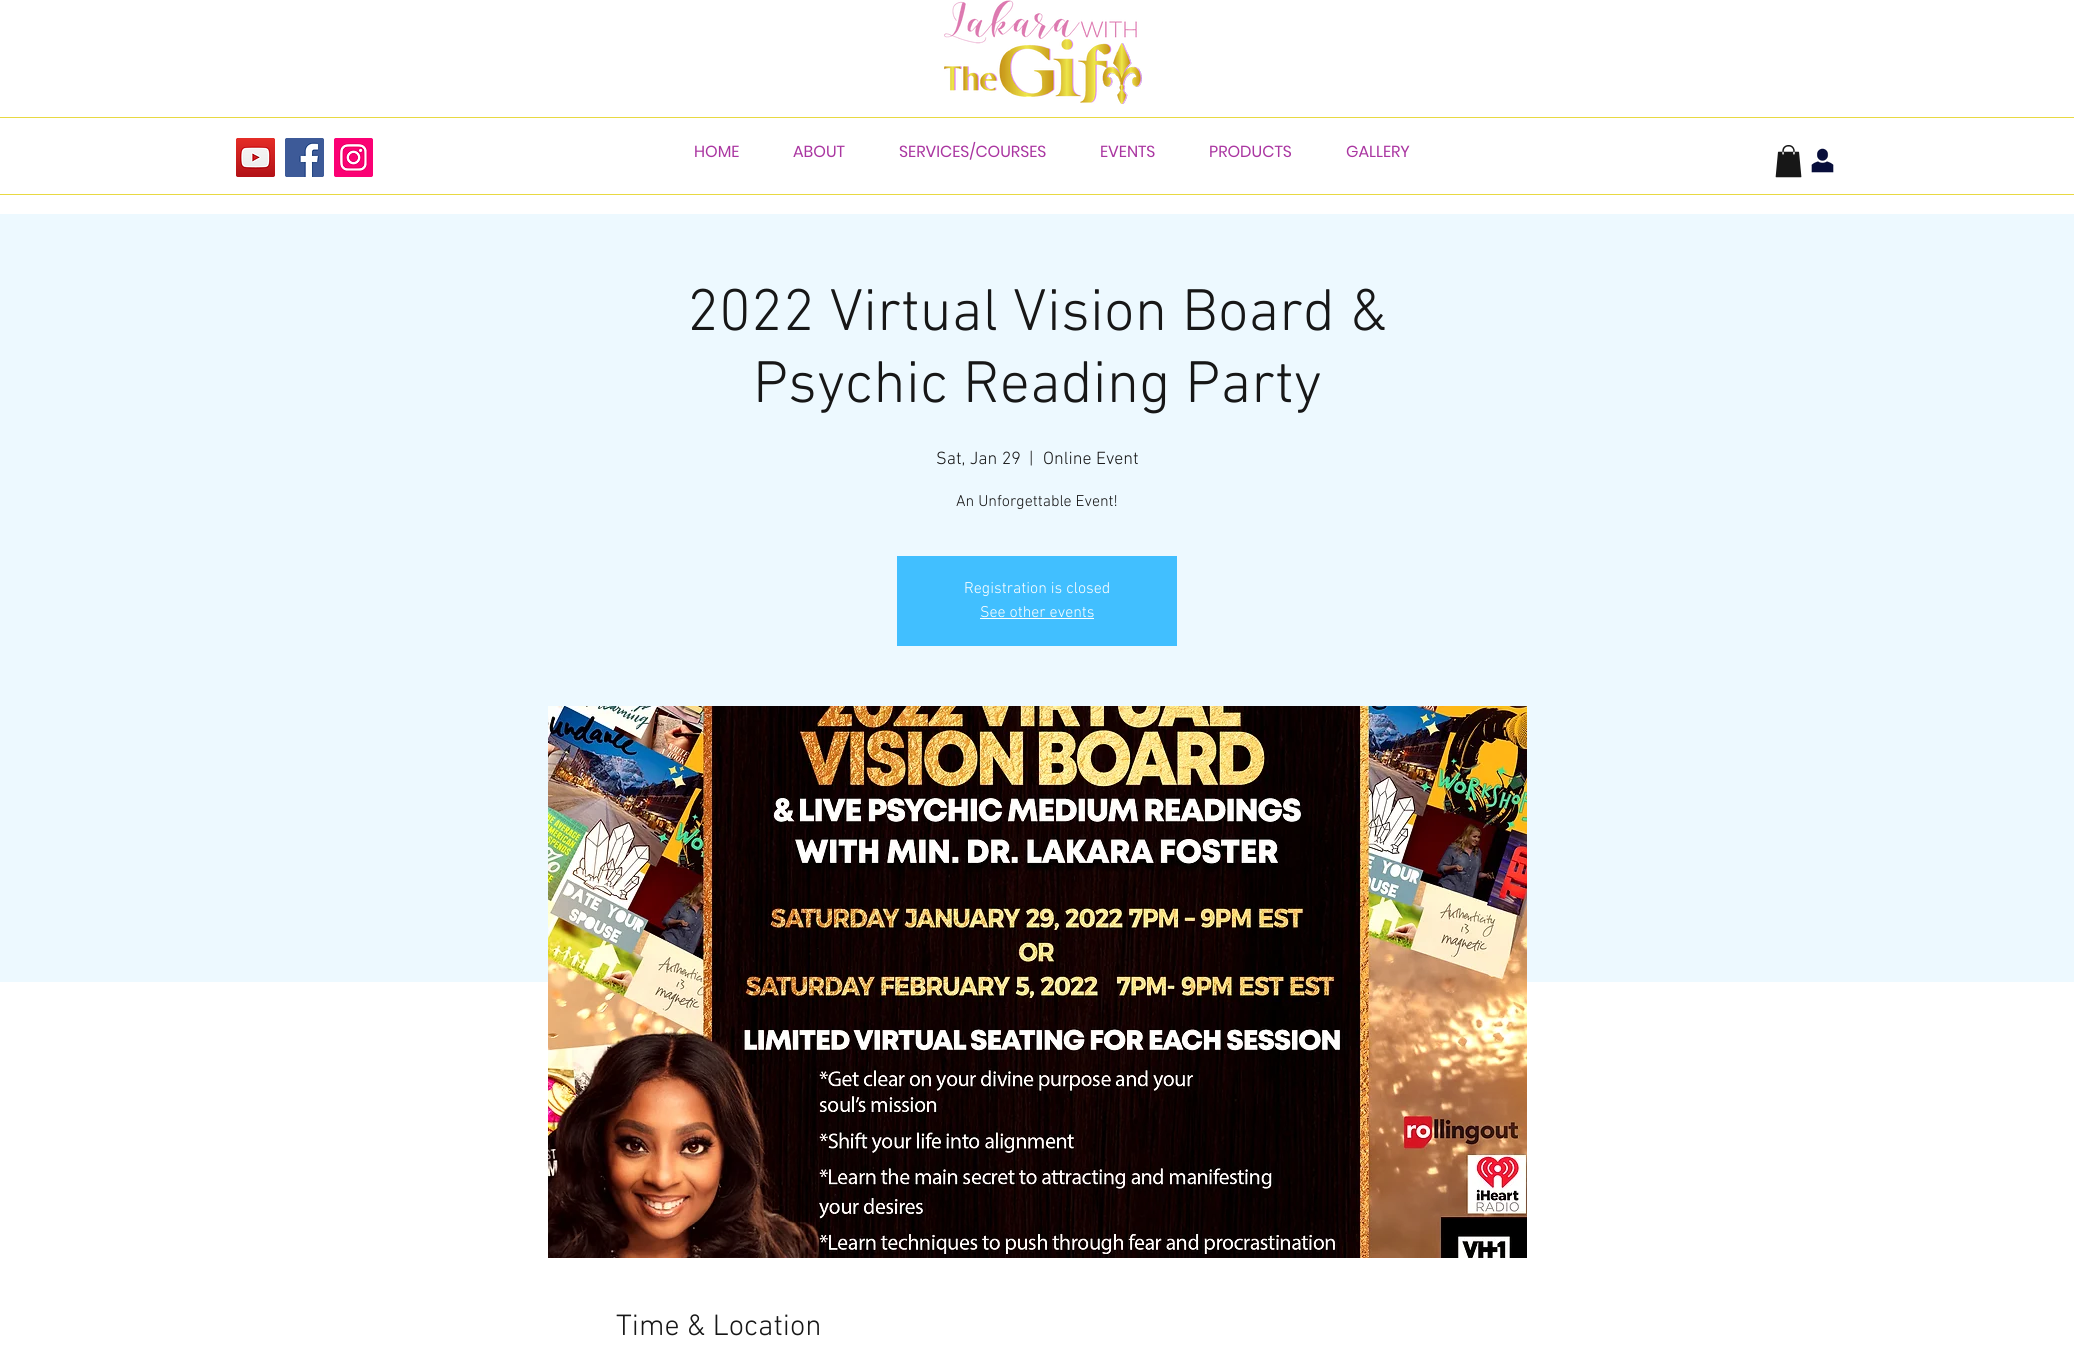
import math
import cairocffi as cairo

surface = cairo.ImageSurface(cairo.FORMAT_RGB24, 2074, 1360)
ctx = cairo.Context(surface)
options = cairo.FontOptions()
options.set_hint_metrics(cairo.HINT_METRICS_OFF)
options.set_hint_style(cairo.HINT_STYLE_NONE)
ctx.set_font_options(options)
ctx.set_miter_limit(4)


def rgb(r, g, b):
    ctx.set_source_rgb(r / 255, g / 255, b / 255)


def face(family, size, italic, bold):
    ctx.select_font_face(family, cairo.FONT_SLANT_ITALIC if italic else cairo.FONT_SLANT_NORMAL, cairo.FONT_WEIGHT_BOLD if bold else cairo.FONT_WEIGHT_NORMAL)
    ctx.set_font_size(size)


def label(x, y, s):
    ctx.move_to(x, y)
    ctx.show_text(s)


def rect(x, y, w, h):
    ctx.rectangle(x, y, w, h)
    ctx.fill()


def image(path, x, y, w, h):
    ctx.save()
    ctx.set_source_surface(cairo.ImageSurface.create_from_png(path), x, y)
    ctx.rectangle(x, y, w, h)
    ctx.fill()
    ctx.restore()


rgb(255, 255, 255)
ctx.paint()
image('image0.png', 944, 0, 198, 104)
image('image1.png', 236, 138, 39, 39)
image('image2.png', 285, 138, 39, 39)
image('image3.png', 334, 138, 39, 39)
image('image4.png', 1775, 145, 27, 33)
image('image5.png', 1811, 148, 23, 25)
rgb(232, 217, 66)
rect(0, 117, 2074, 1)
face('Poppins', 16, 0, 0)
rgb(170, 54, 161)
label(694, 157, 'HOME')
label(793, 157, 'ABOUT')
label(899, 157, 'SERVICES/COURSES')
label(1100, 157, 'EVENTS')
label(1209, 157, 'PRODUCTS')
label(1346, 157, 'GALLERY')
rgb(232, 217, 66)
rect(0, 194, 2074, 1)
rgb(237, 249, 255)
rect(0, 214, 2074, 768)
face('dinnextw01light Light', 60, 0, 0)
rgb(23, 23, 23)
label(687, 330, '2022 Virtual Vision Board &')
label(753, 402, 'Psychic Reading Party')
face('dinnextw01light Light', 18, 0, 0)
label(936, 464, 'Sat, Jan 29')
label(1029, 464, '|')
label(1043, 464, 'Online Event')
face('dinnextw01light Light', 16, 0, 0)
label(956, 506, 'An Unforgettable Event!')
rgb(65, 191, 255)
rect(897, 556, 280, 90)
rgb(255, 255, 255)
label(964, 593, 'Registration is closed')
label(980, 617, 'See other events')
rect(980, 618, 114, 1)
image('image6.png', 548, 706, 979, 552)
face('dinnextw01light Light', 30, 0, 0)
rgb(23, 23, 23)
label(616, 1335, 'Time & Location')
surface.write_to_png('render.png')
